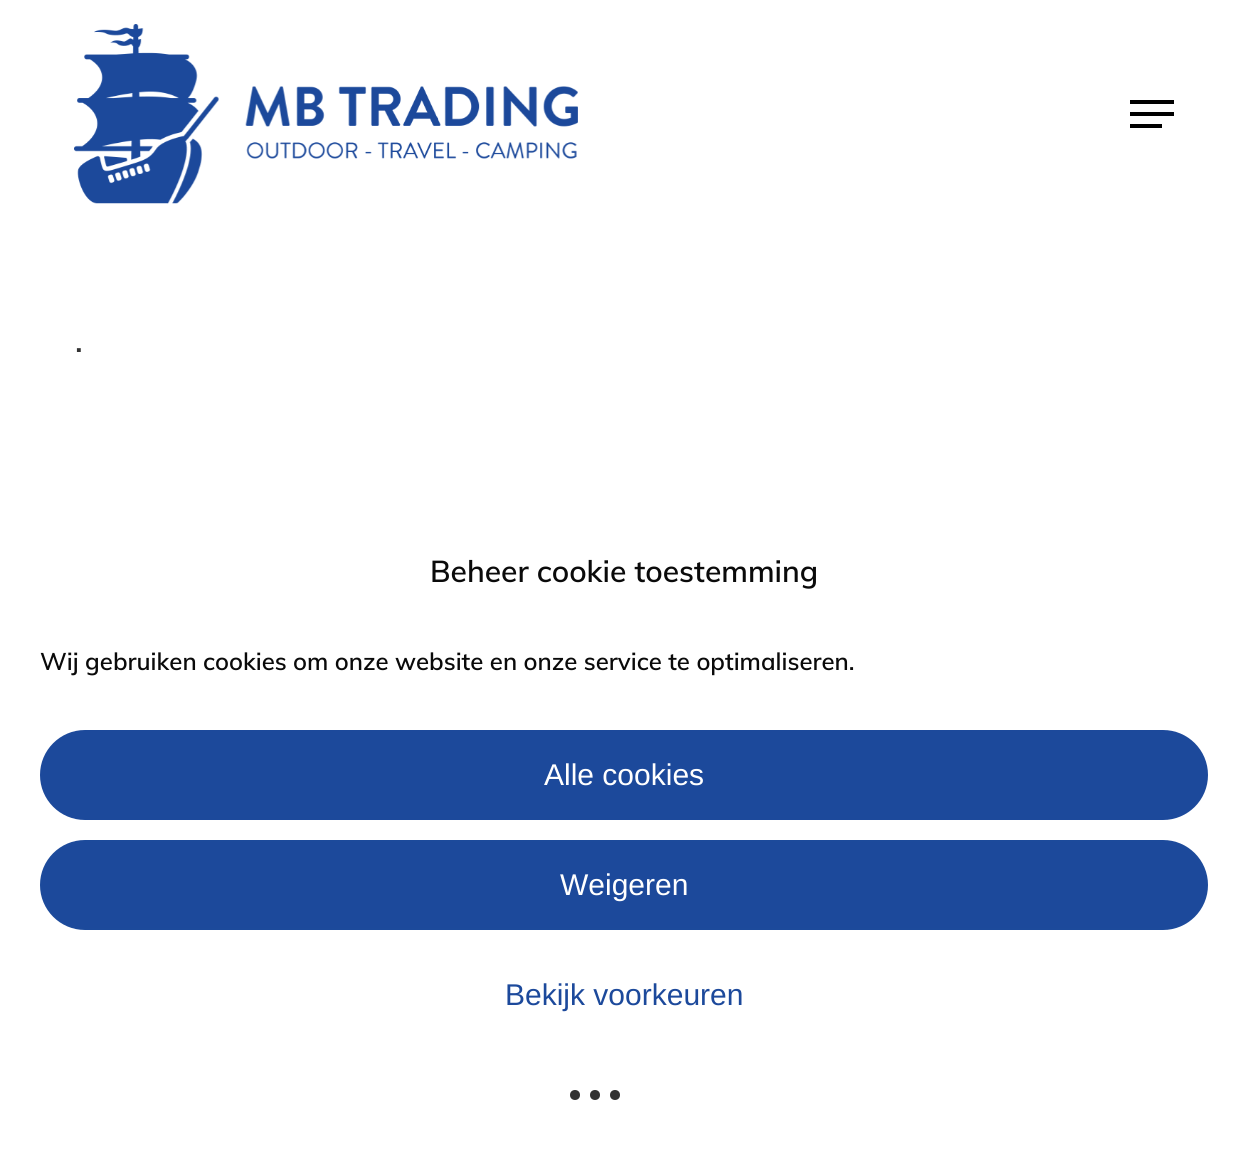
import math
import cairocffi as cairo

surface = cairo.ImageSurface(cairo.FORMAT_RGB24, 1247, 1153)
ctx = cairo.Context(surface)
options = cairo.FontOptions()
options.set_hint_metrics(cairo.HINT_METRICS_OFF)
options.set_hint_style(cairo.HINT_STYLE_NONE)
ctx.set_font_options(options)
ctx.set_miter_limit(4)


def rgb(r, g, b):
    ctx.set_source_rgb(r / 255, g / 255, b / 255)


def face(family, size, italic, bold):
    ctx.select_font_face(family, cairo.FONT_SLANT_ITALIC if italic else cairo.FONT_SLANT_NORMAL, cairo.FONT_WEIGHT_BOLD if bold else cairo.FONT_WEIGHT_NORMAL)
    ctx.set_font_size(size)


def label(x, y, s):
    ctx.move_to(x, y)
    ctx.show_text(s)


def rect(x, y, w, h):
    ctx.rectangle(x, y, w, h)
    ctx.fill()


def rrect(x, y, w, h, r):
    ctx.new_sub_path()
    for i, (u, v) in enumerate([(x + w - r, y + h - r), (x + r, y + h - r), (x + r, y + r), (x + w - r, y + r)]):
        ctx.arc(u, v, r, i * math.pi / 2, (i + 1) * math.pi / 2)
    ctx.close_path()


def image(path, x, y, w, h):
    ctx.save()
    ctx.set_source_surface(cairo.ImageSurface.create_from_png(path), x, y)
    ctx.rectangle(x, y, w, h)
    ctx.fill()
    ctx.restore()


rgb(255, 255, 255)
ctx.paint()
image('image0.png', 74, 24, 504, 180)
rgb(0, 0, 0)
rect(1130, 100, 44, 4)
rect(1130, 124, 32, 4)
rect(1130, 112, 44, 4)
face('Muli SemiBold', 32, 0, 0)
rgb(51, 51, 51)
label(75, 352, '.')
face('Muli SemiBold', 30, 0, 0)
rgb(10, 10, 10)
label(430, 582, 'Beheer cookie toestemming')
face('Muli SemiBold', 24, 0, 0)
label(40, 670, 'Wij gebruiken cookies om onze website en onze service te optimaliseren.')
rgb(28, 73, 155)
rrect(41, 731, 1166, 88, 44)
ctx.fill_preserve()
ctx.stroke()
face('Liberation Sans', 30, 0, 0)
rgb(255, 255, 255)
label(544, 785, 'Alle cookies')
rgb(28, 73, 155)
rrect(41, 841, 1166, 88, 44)
ctx.fill_preserve()
rgb(28, 74, 155)
ctx.stroke()
rgb(255, 255, 255)
label(560, 895, 'Weigeren')
rgb(28, 73, 155)
label(505, 1005, 'Bekijk voorkeuren')
rgb(51, 51, 51)
ctx.new_path()
ctx.arc(575, 1095, 5, 0, 2 * math.pi)
ctx.fill()
ctx.arc(595, 1095, 5, 0, 2 * math.pi)
ctx.fill()
ctx.arc(615, 1095, 5, 0, 2 * math.pi)
ctx.fill()
surface.write_to_png('render.png')
